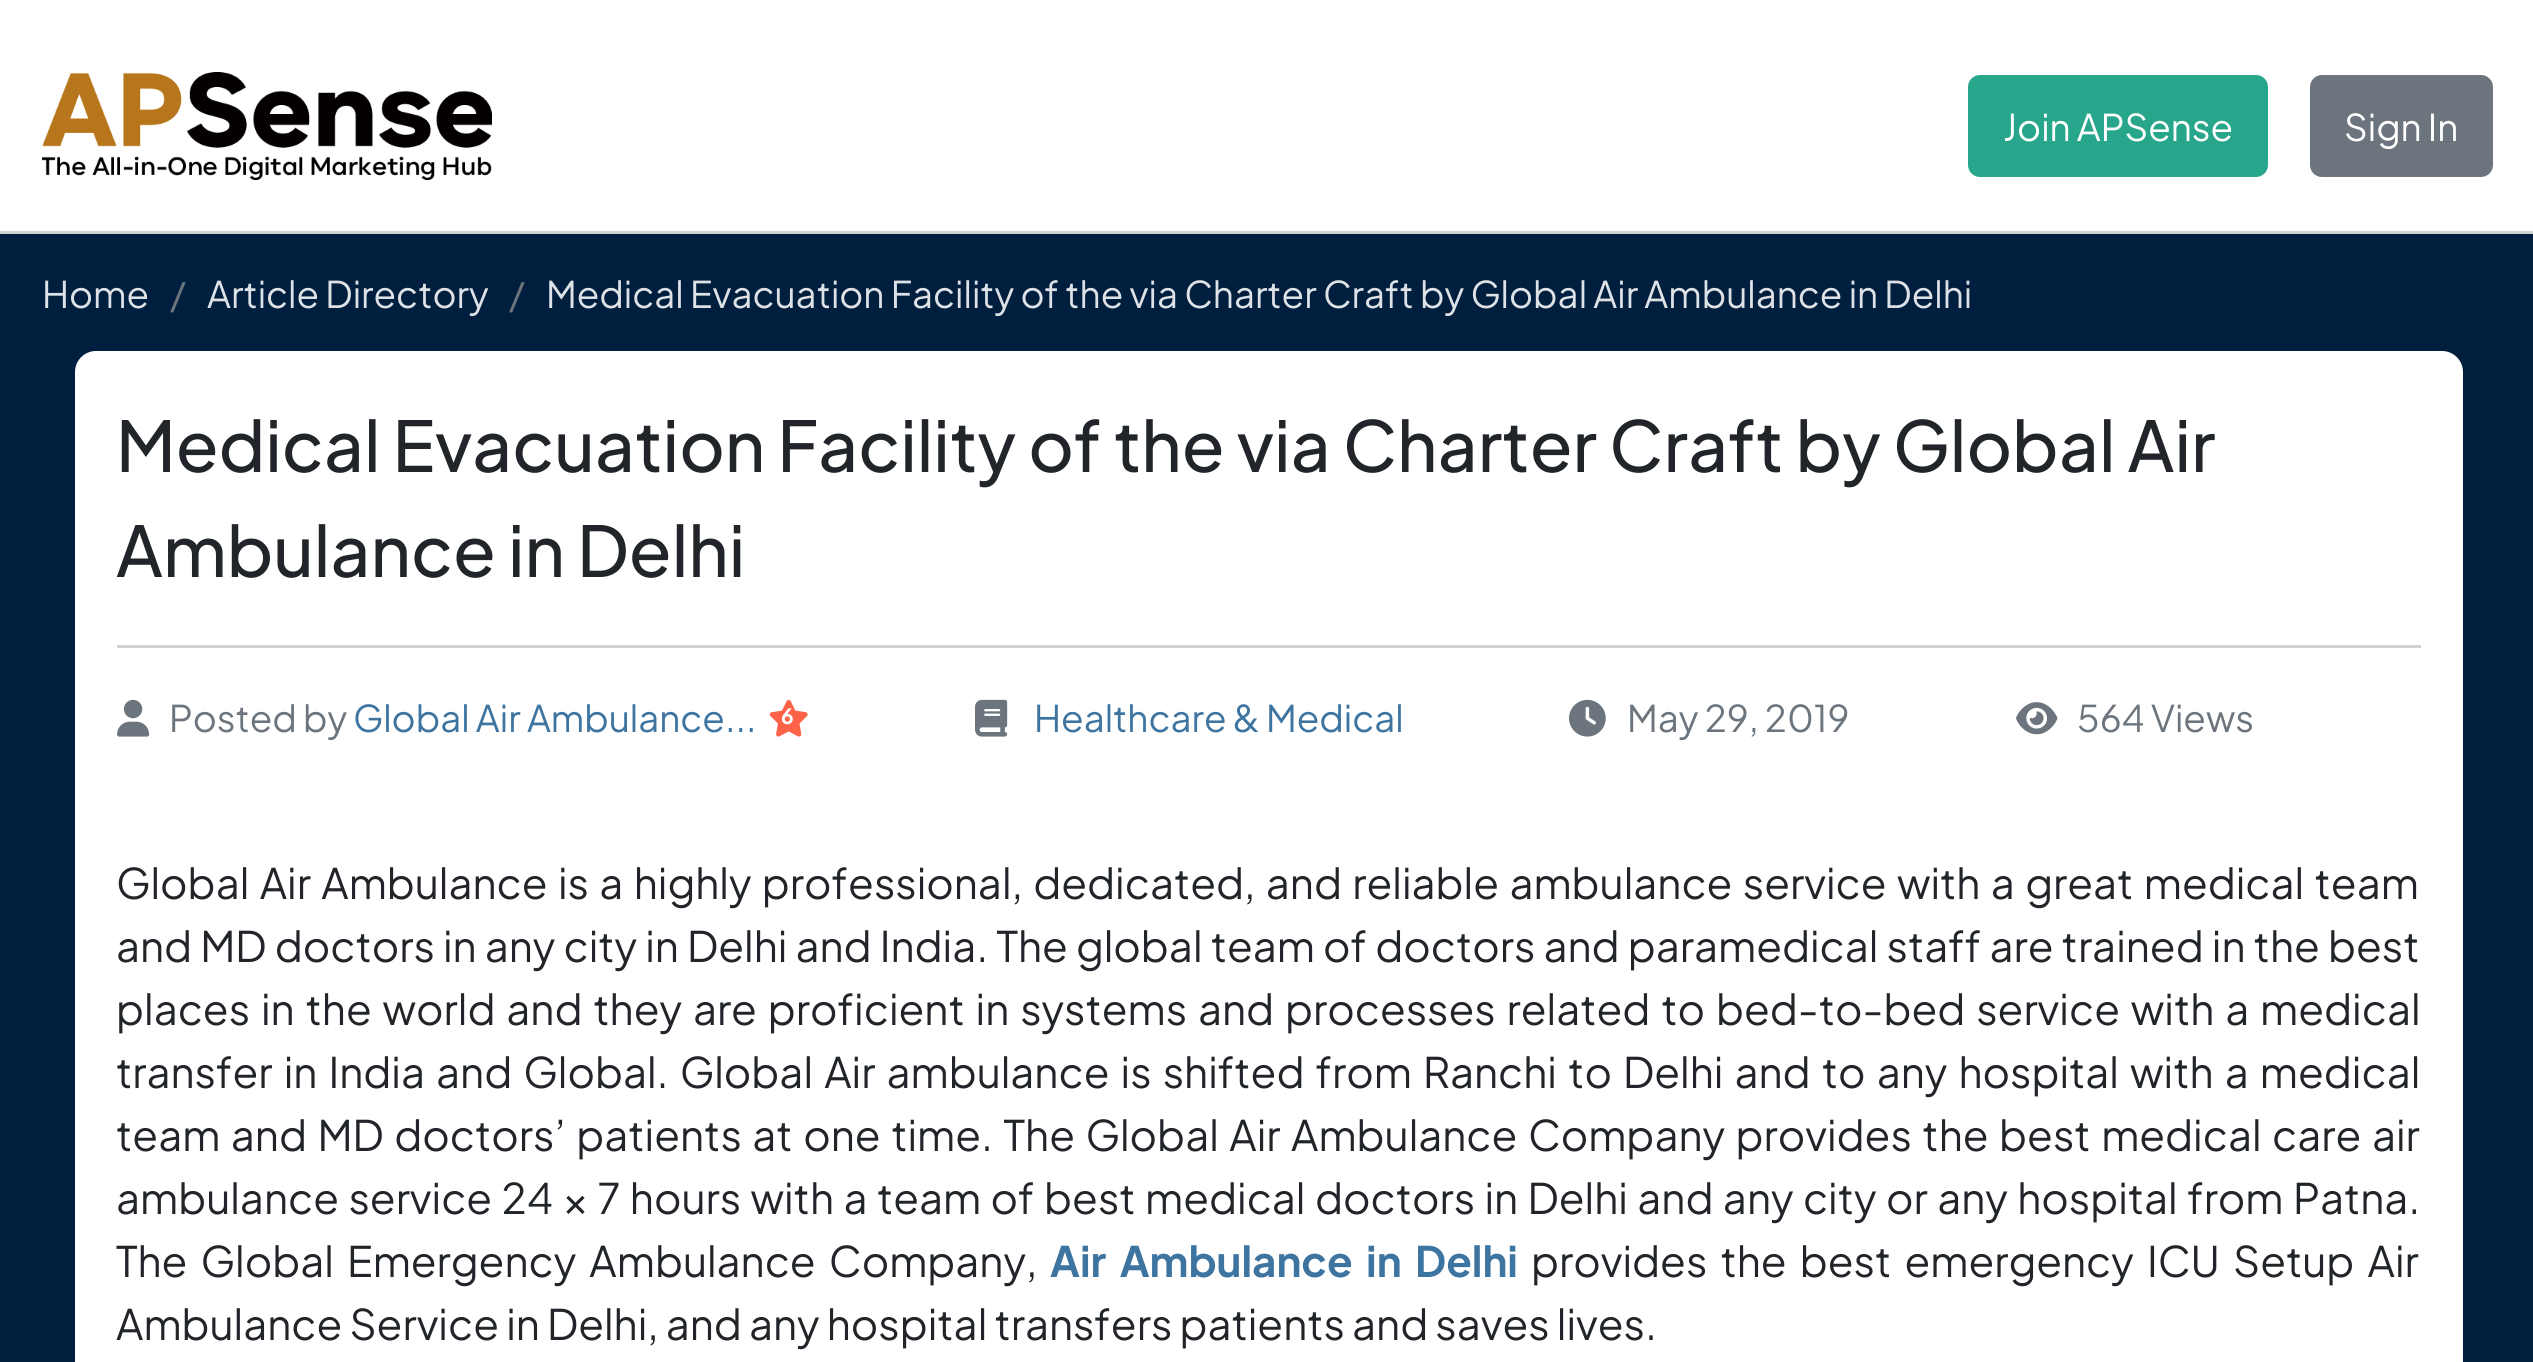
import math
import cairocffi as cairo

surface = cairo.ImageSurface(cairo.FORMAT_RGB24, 2533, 1362)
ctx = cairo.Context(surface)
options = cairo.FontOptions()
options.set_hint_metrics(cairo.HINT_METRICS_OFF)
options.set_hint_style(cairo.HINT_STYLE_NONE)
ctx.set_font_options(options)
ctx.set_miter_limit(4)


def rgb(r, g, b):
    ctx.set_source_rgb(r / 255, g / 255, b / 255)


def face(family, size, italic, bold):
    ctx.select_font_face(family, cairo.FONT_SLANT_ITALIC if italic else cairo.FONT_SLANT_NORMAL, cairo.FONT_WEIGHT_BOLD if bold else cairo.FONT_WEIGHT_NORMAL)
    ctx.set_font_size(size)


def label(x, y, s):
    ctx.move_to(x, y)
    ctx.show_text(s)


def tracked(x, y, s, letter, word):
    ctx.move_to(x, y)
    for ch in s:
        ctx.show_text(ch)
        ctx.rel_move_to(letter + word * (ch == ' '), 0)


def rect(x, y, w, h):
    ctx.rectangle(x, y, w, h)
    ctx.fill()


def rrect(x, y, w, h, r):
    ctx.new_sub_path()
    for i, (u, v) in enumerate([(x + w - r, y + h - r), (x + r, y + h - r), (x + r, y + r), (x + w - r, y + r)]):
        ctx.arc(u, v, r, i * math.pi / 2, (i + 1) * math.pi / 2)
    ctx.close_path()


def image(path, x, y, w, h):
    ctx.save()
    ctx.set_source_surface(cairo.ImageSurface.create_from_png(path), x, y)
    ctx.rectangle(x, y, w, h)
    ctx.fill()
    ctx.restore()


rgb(0, 31, 63)
ctx.paint()
rgb(255, 255, 255)
rect(0, 0, 2533, 231)
rgb(209, 209, 209)
rect(0, 231, 2533, 3)
image('image0.png', 42, 72, 450, 108)
rgb(39, 166, 140)
rrect(1969.5, 76.5, 297, 99, 10.5)
ctx.fill_preserve()
ctx.set_line_width(3)
ctx.stroke()
face('Plus Jakarta Sans', 36.75, 0, 0)
rgb(255, 255, 255)
label(2003, 141, 'Join APSense')
rgb(108, 117, 125)
rrect(2311.5, 76.5, 180, 99, 10.5)
ctx.fill_preserve()
ctx.stroke()
rgb(255, 255, 255)
label(2344, 141, 'Sign In')
rgb(222, 226, 230)
label(42, 308, 'Home')
rgb(108, 117, 125)
label(170, 308, '/')
rgb(222, 226, 230)
label(207, 308, 'Article Directory')
rgb(108, 117, 125)
label(509, 308, '/')
rgb(222, 226, 230)
label(546, 308, 'Medical Evacuation Facility of the via Charter Craft by Global Air Ambulance in Delhi')
rgb(255, 255, 255)
rrect(75, 351, 2388, 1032, 21)
ctx.fill()
rgb(209, 209, 209)
rect(117, 645, 2304, 3)
face('Plus Jakarta Sans Medium', 69.8, 0, 0)
rgb(33, 37, 41)
label(116, 472, 'Medical Evacuation Facility of the via Charter Craft by Global Air')
label(116, 577, 'Ambulance in Delhi')
image('image1.png', 117, 699, 33, 38)
face('Plus Jakarta Sans', 36.75, 0, 0)
rgb(108, 117, 125)
label(169, 732, 'Posted by')
rgb(62, 116, 160)
label(353, 732, 'Global Air Ambulance...')
image('image2.png', 769, 699, 39, 38)
face('Plus Jakarta Sans', 21, 0, 1)
rgb(255, 255, 255)
label(781, 724, '6')
image('image3.png', 975, 699, 33, 38)
face('Plus Jakarta Sans', 36.75, 0, 0)
rgb(62, 116, 160)
label(1034, 732, 'Healthcare & Medical')
image('image4.png', 1569, 699, 37, 38)
rgb(108, 117, 125)
label(1627, 732, 'May 29, 2019')
image('image5.png', 2016, 702, 42, 33)
label(2077, 732, '564 Views')
face('Plus Jakarta Sans', 42, 0, 0)
rgb(33, 37, 41)
tracked(116, 899, 'Global Air Ambulance is a highly professional, dedicated, and reliable ambulance service with a great medical team', 0, 3.25)
tracked(116, 962, 'and MD doctors in any city in Delhi and India. The global team of doctors and paramedical staff are trained in the best', 0, 1)
tracked(116, 1025, 'places in the world and they are proficient in systems and processes related to bed-to-bed service with a medical', 0, 3.75)
tracked(116, 1088, 'transfer in India and Global. Global Air ambulance is shifted from Ranchi to Delhi and to any hospital with a medical', 0, 4)
tracked(116, 1151, 'team and MD doctors’ patients at one time. The Global Air Ambulance Company provides the best medical care air', 0, 3.4)
tracked(116, 1214, 'ambulance service 24 × 7 hours with a team of best medical doctors in Delhi and any city or any hospital from Patna.', 0, 2.3)
tracked(116, 1277, 'The Global Emergency Ambulance Company,', 0, 6)
face('Plus Jakarta Sans', 42, 0, 1)
rgb(62, 116, 160)
tracked(1050, 1277, 'Air Ambulance in Delhi', 0, 6)
face('Plus Jakarta Sans', 42, 0, 0)
rgb(33, 37, 41)
tracked(1531, 1277, 'provides the best emergency ICU Setup Air', 0, 6)
label(116, 1340, 'Ambulance Service in Delhi, and any hospital transfers patients and saves lives.')
surface.write_to_png('render.png')
